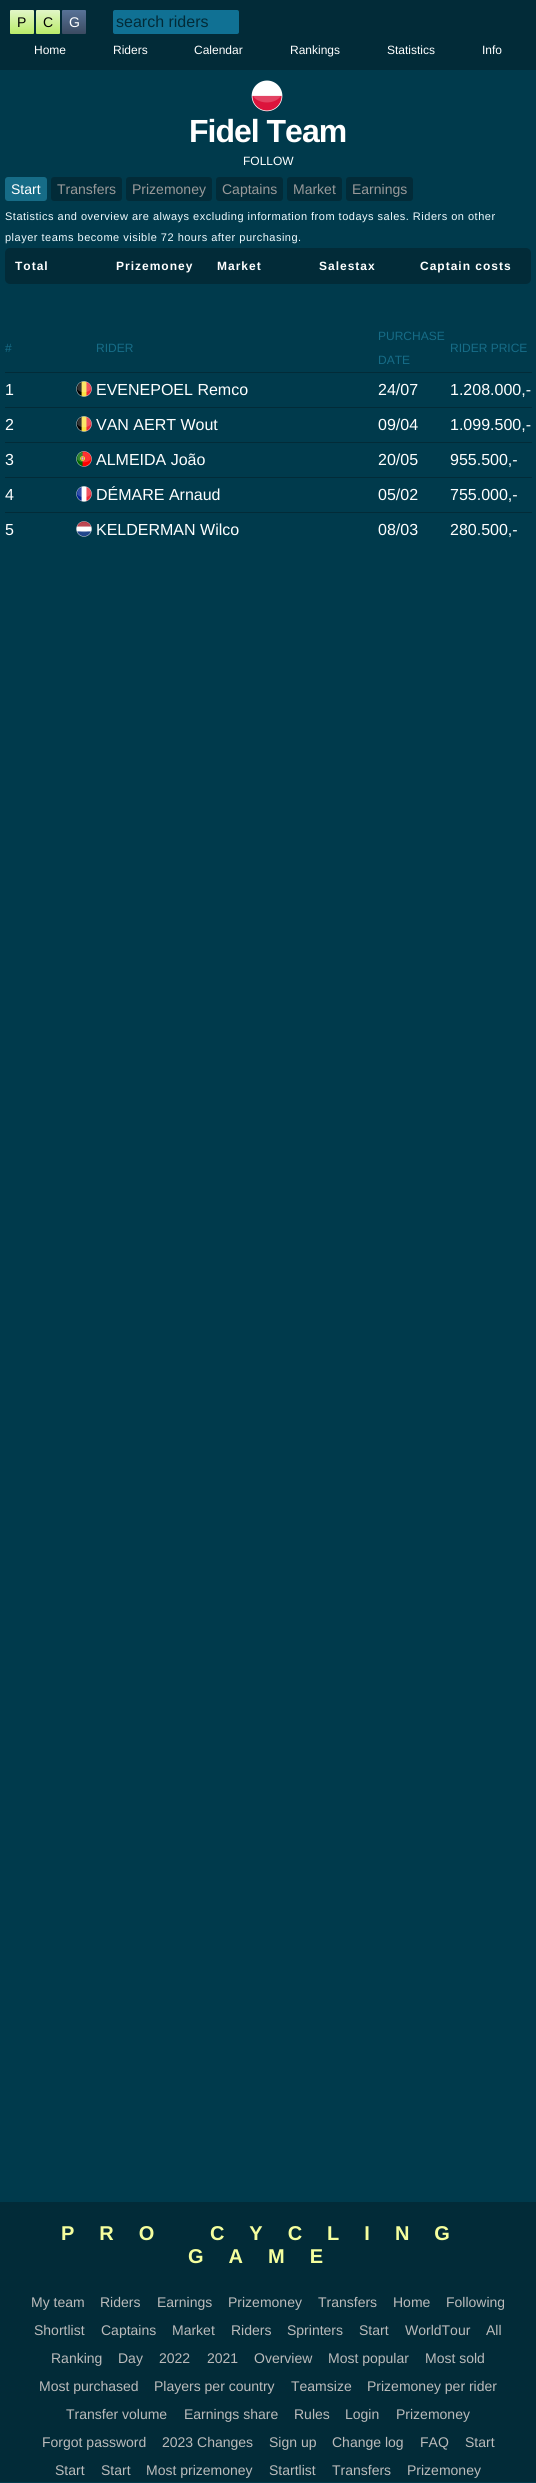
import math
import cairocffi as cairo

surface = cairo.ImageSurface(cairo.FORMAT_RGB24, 536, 2483)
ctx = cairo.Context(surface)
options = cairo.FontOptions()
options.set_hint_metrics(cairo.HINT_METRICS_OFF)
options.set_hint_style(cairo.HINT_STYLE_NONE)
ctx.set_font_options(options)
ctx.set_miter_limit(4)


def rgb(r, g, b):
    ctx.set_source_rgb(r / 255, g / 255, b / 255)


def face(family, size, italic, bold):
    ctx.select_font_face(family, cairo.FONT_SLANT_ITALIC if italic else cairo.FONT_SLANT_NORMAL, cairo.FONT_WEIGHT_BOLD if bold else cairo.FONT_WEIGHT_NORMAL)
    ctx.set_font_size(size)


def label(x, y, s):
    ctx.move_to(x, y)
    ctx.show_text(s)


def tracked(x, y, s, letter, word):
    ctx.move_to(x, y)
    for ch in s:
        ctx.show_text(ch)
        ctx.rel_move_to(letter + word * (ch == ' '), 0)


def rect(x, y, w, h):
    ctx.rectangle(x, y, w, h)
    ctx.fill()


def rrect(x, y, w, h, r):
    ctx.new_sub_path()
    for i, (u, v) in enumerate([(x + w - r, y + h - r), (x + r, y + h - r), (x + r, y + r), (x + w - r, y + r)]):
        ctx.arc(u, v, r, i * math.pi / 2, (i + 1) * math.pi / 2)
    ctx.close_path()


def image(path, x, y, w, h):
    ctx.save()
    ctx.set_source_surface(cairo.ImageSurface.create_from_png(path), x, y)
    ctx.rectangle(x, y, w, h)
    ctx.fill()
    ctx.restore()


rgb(0, 58, 76)
ctx.paint()
rgb(2, 43, 56)
rect(0, 0, 536, 70)
gradient = cairo.LinearGradient(22, 10, 22, 34)
gradient.add_color_stop_rgba(0, 0.008, 0, 0.141, 1)
gradient.add_color_stop_rgba(0, 0.886, 0.965, 0.784, 1)
gradient.add_color_stop_rgba(1, 0.729, 0.922, 0.412, 1)
ctx.set_source(gradient)
rrect(10, 10, 24, 24, 1)
ctx.fill()
face('Liberation Sans', 14, 0, 0)
rgb(0, 0, 0)
label(17, 27, 'P')
gradient = cairo.LinearGradient(48, 10, 48, 34)
gradient.add_color_stop_rgba(0, 0.008, 0, 0.141, 1)
gradient.add_color_stop_rgba(0, 0.886, 0.965, 0.784, 1)
gradient.add_color_stop_rgba(1, 0.729, 0.922, 0.412, 1)
ctx.set_source(gradient)
rrect(36, 10, 24, 24, 1)
ctx.fill()
rgb(0, 0, 0)
label(43, 27, 'C')
gradient = cairo.LinearGradient(74, 34, 74, 10)
gradient.add_color_stop_rgba(0, 0.231, 0.294, 0.384, 1)
gradient.add_color_stop_rgba(1, 0.345, 0.447, 0.592, 1)
ctx.set_source(gradient)
rrect(62, 10, 24, 24, 1)
ctx.fill()
rgb(255, 255, 255)
label(69, 27, 'G')
rgb(16, 113, 148)
rrect(113, 10, 126, 24, 2)
ctx.fill()
face('Liberation Sans', 16, 0, 0)
rgb(2, 43, 56)
label(116, 27, 'search riders')
face('Liberation Sans', 12, 0, 0)
rgb(255, 255, 255)
label(34, 54, 'Home')
label(113, 54, 'Riders')
label(194, 54, 'Calendar')
label(290, 54, 'Rankings')
label(387, 54, 'Statistics')
label(482, 54, 'Info')
image('image0.png', 251, 80, 32, 32)
face('Liberation Sans', 32, 0, 1)
tracked(189, 142, 'Fidel Team', -1, 0)
face('Liberation Sans', 12, 0, 0)
label(243, 165, 'FOLLOW')
rgb(22, 108, 135)
rrect(5, 177, 42, 24, 3)
ctx.fill()
face('Liberation Sans', 14, 0, 0)
rgb(255, 255, 255)
label(11, 194, 'Start')
rgb(2, 43, 56)
rrect(51, 177, 71, 24, 3)
ctx.fill()
rgb(153, 153, 153)
label(57, 194, 'Transfers')
rgb(2, 43, 56)
rrect(126, 177, 86, 24, 3)
ctx.fill()
rgb(153, 153, 153)
label(132, 194, 'Prizemoney')
rgb(2, 43, 56)
rrect(216, 177, 67, 24, 3)
ctx.fill()
rgb(153, 153, 153)
label(222, 194, 'Captains')
rgb(2, 43, 56)
rrect(287, 177, 55, 24, 3)
ctx.fill()
rgb(153, 153, 153)
label(293, 194, 'Market')
rgb(2, 43, 56)
rrect(346, 177, 67, 24, 3)
ctx.fill()
rgb(153, 153, 153)
label(352, 194, 'Earnings')
face('Liberation Sans', 11, 0, 0)
rgb(240, 251, 255)
tracked(5, 220, 'Statistics and overview are always excluding information from todays sales. Riders on other', 0.5, 0)
tracked(5, 241, 'player teams become visible 72 hours after purchasing.', 0.5, 0)
rgb(2, 43, 56)
rrect(5, 248, 526, 36, 5)
ctx.fill()
face('Liberation Sans', 12, 0, 1)
rgb(255, 255, 255)
tracked(15, 270, 'Total', 1, 0)
tracked(116, 270, 'Prizemoney', 1, 0)
tracked(217, 270, 'Market', 1, 0)
tracked(319, 270, 'Salestax', 1, 0)
tracked(420, 270, 'Captain costs', 1, 0)
face('Liberation Sans', 12, 0, 0)
rgb(22, 108, 135)
label(5, 352, '#')
label(96, 352, 'RIDER')
label(378, 340, 'PURCHASE')
label(378, 364, 'DATE')
label(450, 352, 'RIDER PRICE')
face('Liberation Sans', 16, 0, 0)
rgb(255, 255, 255)
label(5, 395, '1')
image('image1.png', 76, 381, 16, 16)
label(96, 395, 'EVENEPOEL Remco')
label(378, 395, '24/07')
rgb(2, 43, 56)
rect(5, 372, 527, 1)
rgb(255, 255, 255)
label(450, 395, '1.208.000,-')
label(5, 430, '2')
image('image1.png', 76, 416, 16, 16)
label(96, 430, 'VAN AERT Wout')
label(378, 430, '09/04')
rgb(2, 43, 56)
rect(5, 407, 527, 1)
rgb(255, 255, 255)
label(450, 430, '1.099.500,-')
label(5, 465, '3')
image('image2.png', 76, 451, 16, 16)
label(96, 465, 'ALMEIDA João')
label(378, 465, '20/05')
rgb(2, 43, 56)
rect(5, 442, 527, 1)
rgb(255, 255, 255)
label(450, 465, '955.500,-')
label(5, 500, '4')
image('image3.png', 76, 486, 16, 16)
label(96, 500, 'DÉMARE Arnaud')
label(378, 500, '05/02')
rgb(2, 43, 56)
rect(5, 477, 527, 1)
rgb(255, 255, 255)
label(450, 500, '755.000,-')
label(5, 535, '5')
image('image4.png', 76, 521, 16, 16)
label(96, 535, 'KELDERMAN Wilco')
label(378, 535, '08/03')
rgb(2, 43, 56)
rect(5, 512, 527, 1)
rgb(255, 255, 255)
label(450, 535, '280.500,-')
rgb(2, 43, 56)
rect(0, 2202, 536, 280)
face('Liberation Sans', 20, 0, 1)
rgb(245, 255, 158)
tracked(61, 2240, 'PRO CYCLING', 25, 0)
tracked(188, 2263, 'GAME', 25, 0)
face('Liberation Sans', 14, 0, 0)
rgb(187, 187, 187)
label(31, 2307, 'My team')
label(100, 2307, 'Riders')
label(157, 2307, 'Earnings')
label(228, 2307, 'Prizemoney')
label(318, 2307, 'Transfers')
label(393, 2307, 'Home')
label(446, 2307, 'Following')
label(34, 2335, 'Shortlist')
label(101, 2335, 'Captains')
label(172, 2335, 'Market')
label(231, 2335, 'Riders')
label(287, 2335, 'Sprinters')
label(359, 2335, 'Start')
label(405, 2335, 'WorldTour')
label(486, 2335, 'All')
label(51, 2363, 'Ranking')
label(118, 2363, 'Day')
label(159, 2363, '2022')
label(207, 2363, '2021')
label(254, 2363, 'Overview')
label(328, 2363, 'Most popular')
label(425, 2363, 'Most sold')
label(39, 2391, 'Most purchased')
label(154, 2391, 'Players per country')
label(291, 2391, 'Teamsize')
label(367, 2391, 'Prizemoney per rider')
label(66, 2419, 'Transfer volume')
label(184, 2419, 'Earnings share')
label(294, 2419, 'Rules')
label(345, 2419, 'Login')
label(396, 2419, 'Prizemoney')
label(42, 2447, 'Forgot password')
label(162, 2447, '2023 Changes')
label(269, 2447, 'Sign up')
label(332, 2447, 'Change log')
label(420, 2447, 'FAQ')
label(465, 2447, 'Start')
label(55, 2475, 'Start')
label(101, 2475, 'Start')
label(146, 2475, 'Most prizemoney')
label(269, 2475, 'Startlist')
label(332, 2475, 'Transfers')
label(407, 2475, 'Prizemoney')
surface.write_to_png('render.png')
